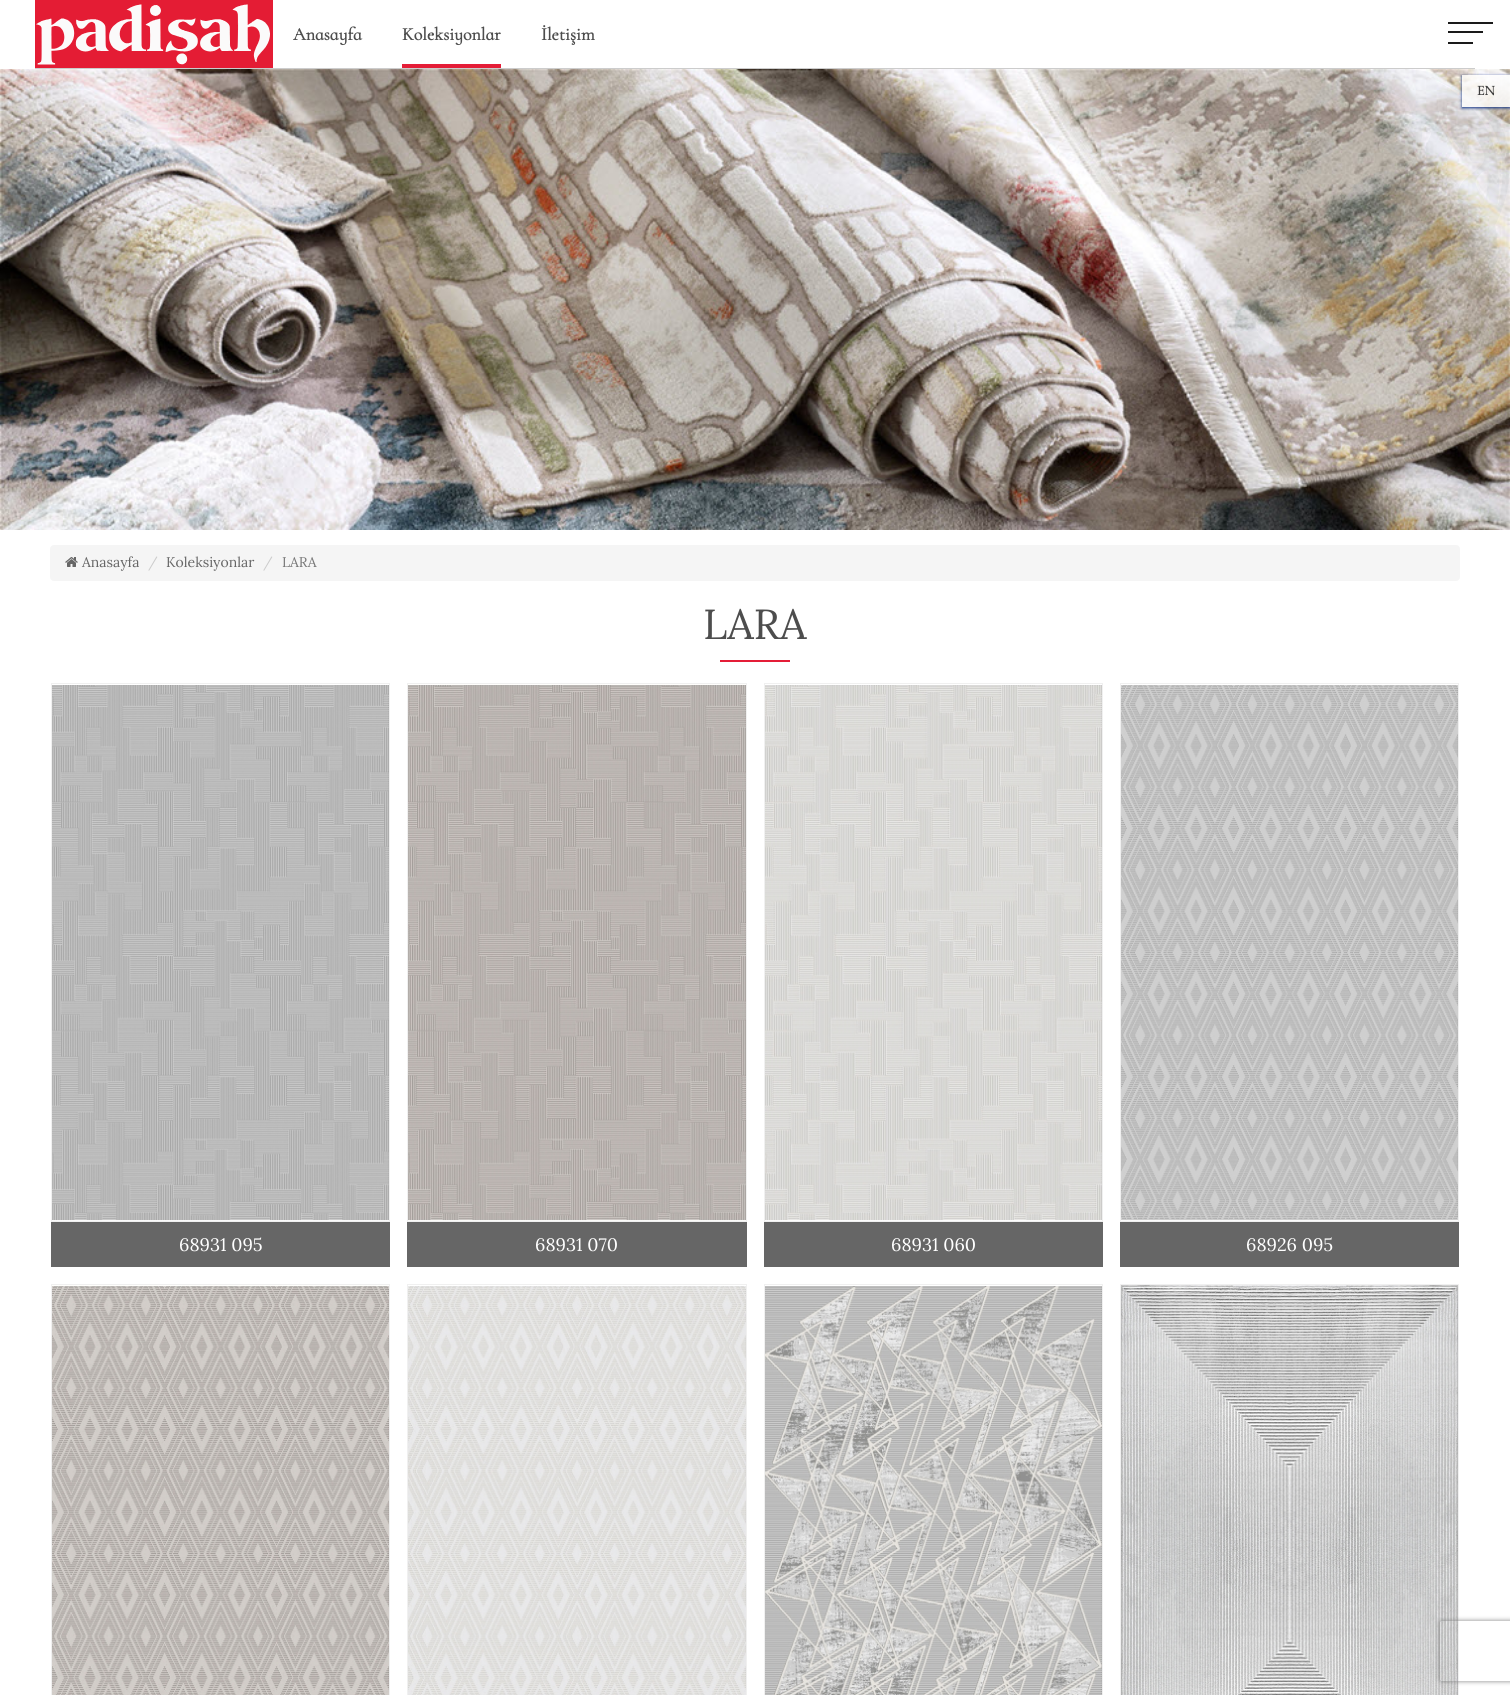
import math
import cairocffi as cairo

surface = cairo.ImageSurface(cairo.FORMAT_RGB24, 1510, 1695)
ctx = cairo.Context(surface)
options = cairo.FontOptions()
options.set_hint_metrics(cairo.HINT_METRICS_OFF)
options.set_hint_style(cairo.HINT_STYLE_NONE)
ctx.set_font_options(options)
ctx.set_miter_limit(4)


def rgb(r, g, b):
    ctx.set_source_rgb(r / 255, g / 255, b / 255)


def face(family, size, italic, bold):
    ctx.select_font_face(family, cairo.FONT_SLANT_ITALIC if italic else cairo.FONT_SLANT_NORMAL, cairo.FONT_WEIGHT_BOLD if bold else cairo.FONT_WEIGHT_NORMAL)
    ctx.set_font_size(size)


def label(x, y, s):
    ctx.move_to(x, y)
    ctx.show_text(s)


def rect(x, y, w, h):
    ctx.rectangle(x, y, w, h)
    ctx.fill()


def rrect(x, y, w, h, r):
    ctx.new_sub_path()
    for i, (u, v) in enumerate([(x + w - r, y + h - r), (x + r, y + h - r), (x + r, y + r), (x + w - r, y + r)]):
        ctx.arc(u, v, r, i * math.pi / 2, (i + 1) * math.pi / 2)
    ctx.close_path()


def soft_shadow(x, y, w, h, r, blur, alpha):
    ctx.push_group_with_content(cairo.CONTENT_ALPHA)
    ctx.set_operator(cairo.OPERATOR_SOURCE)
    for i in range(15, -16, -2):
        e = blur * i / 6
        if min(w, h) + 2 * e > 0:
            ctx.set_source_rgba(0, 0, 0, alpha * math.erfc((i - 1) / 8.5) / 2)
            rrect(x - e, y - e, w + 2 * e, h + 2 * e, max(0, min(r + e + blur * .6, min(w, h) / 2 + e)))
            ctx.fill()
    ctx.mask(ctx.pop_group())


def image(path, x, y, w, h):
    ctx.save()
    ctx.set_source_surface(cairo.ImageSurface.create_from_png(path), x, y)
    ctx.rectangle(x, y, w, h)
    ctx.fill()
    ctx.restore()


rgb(255, 255, 255)
ctx.paint()
rgb(26, 26, 26)
rect(1448, 22, 45, 2)
rect(1448, 31, 35, 2)
rect(1448, 42, 25, 2)
rgb(204, 204, 204)
rect(35, 68, 1440, 1)
image('image0.png', 35, 0, 238, 68)
face('Cormorant Infant', 18, 0, 1)
rgb(77, 77, 77)
label(293, 40, 'Anasayfa')
rgb(228, 29, 55)
rect(402, 64, 99, 4)
rgb(77, 77, 77)
label(402, 40, 'Koleksiyonlar')
label(541, 40, 'İletişim')
image('image1.png', 0, 69, 1510, 461)
image('image2.png', 1235, 69, 275, 298)
ctx.save()
ctx.set_fill_rule(cairo.FILL_RULE_EVEN_ODD)
ctx.new_path()
ctx.move_to(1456, 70)
ctx.line_to(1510, 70)
ctx.line_to(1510, 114)
ctx.line_to(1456, 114)
ctx.close_path()
ctx.move_to(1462, 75)
ctx.line_to(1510, 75)
ctx.line_to(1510, 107)
ctx.line_to(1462, 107)
ctx.close_path()
ctx.clip()
rgb(9, 47, 135)
soft_shadow(1462, 76, 48, 32, 0, 1.5, 1)
ctx.restore()
ctx.set_source_rgba(1, 1, 1, 0.8)
rect(1462, 75, 48, 32)
face('Cormorant Infant', 14, 0, 1)
rgb(62, 62, 62)
label(1477, 95, 'EN')
rgb(245, 245, 245)
rrect(50, 545, 1410, 36, 4)
ctx.fill()
image('image3.png', 65, 557, 13, 10)
face('Lora', 14, 0, 0)
rgb(102, 102, 102)
label(82, 567, 'Anasayfa')
rgb(204, 204, 204)
label(148, 567, '/')
rgb(102, 102, 102)
label(166, 567, 'Koleksiyonlar')
rgb(204, 204, 204)
label(263, 567, '/')
rgb(119, 119, 119)
label(282, 567, 'LARA')
face('Lora', 42, 0, 0)
rgb(77, 77, 77)
label(703, 639, 'LARA')
rgb(228, 29, 55)
rect(720, 660, 70, 2)
ctx.rectangle(51.5, 683.5, 338, 538)
rgb(240, 240, 240)
ctx.set_line_width(1)
ctx.stroke()
image('image4.png', 52, 685, 337, 536)
rgb(102, 102, 102)
rect(51, 1222, 339, 45)
face('Lora', 18, 0, 0)
rgb(255, 255, 255)
label(179, 1251, '68931 095')
ctx.rectangle(407.5, 683.5, 339, 538)
rgb(240, 240, 240)
ctx.stroke()
image('image5.png', 408, 684, 338, 537)
rgb(102, 102, 102)
rect(407, 1222, 340, 45)
rgb(255, 255, 255)
label(535, 1251, '68931 070')
ctx.rectangle(764.5, 683.5, 338, 538)
rgb(240, 240, 240)
ctx.stroke()
image('image6.png', 765, 685, 337, 536)
rgb(102, 102, 102)
rect(764, 1222, 339, 45)
rgb(255, 255, 255)
label(891, 1251, '68931 060')
ctx.rectangle(1120.5, 683.5, 338, 538)
rgb(240, 240, 240)
ctx.stroke()
image('image7.png', 1121, 685, 337, 536)
rgb(102, 102, 102)
rect(1120, 1222, 339, 45)
rgb(255, 255, 255)
label(1246, 1251, '68926 095')
ctx.rectangle(51.5, 1284.5, 338, 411)
rgb(240, 240, 240)
ctx.stroke()
image('image8.png', 52, 1285, 337, 410)
ctx.rectangle(407.5, 1284.5, 339, 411)
ctx.stroke()
image('image9.png', 408, 1286, 338, 409)
ctx.rectangle(764.5, 1284.5, 338, 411)
ctx.stroke()
image('image10.png', 765, 1286, 337, 409)
ctx.rectangle(1120.5, 1284.5, 338, 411)
ctx.stroke()
image('image11.png', 1121, 1285, 337, 410)
ctx.save()
ctx.set_fill_rule(cairo.FILL_RULE_EVEN_ODD)
ctx.new_path()
ctx.move_to(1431, 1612)
ctx.line_to(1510, 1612)
ctx.line_to(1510, 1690)
ctx.line_to(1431, 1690)
ctx.close_path()
ctx.move_to(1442, 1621)
ctx.line_to(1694, 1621)
ctx.curve_to(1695, 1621, 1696, 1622, 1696, 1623)
ctx.line_to(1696, 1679)
ctx.curve_to(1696, 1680, 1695, 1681, 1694, 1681)
ctx.line_to(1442, 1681)
ctx.curve_to(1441, 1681, 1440, 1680, 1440, 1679)
ctx.line_to(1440, 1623)
ctx.curve_to(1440, 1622, 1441, 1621, 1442, 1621)
ctx.close_path()
ctx.clip()
rgb(128, 128, 128)
soft_shadow(1440, 1621, 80, 60, 2, 2.5, 1)
ctx.restore()
surface.write_to_png('render.png')
